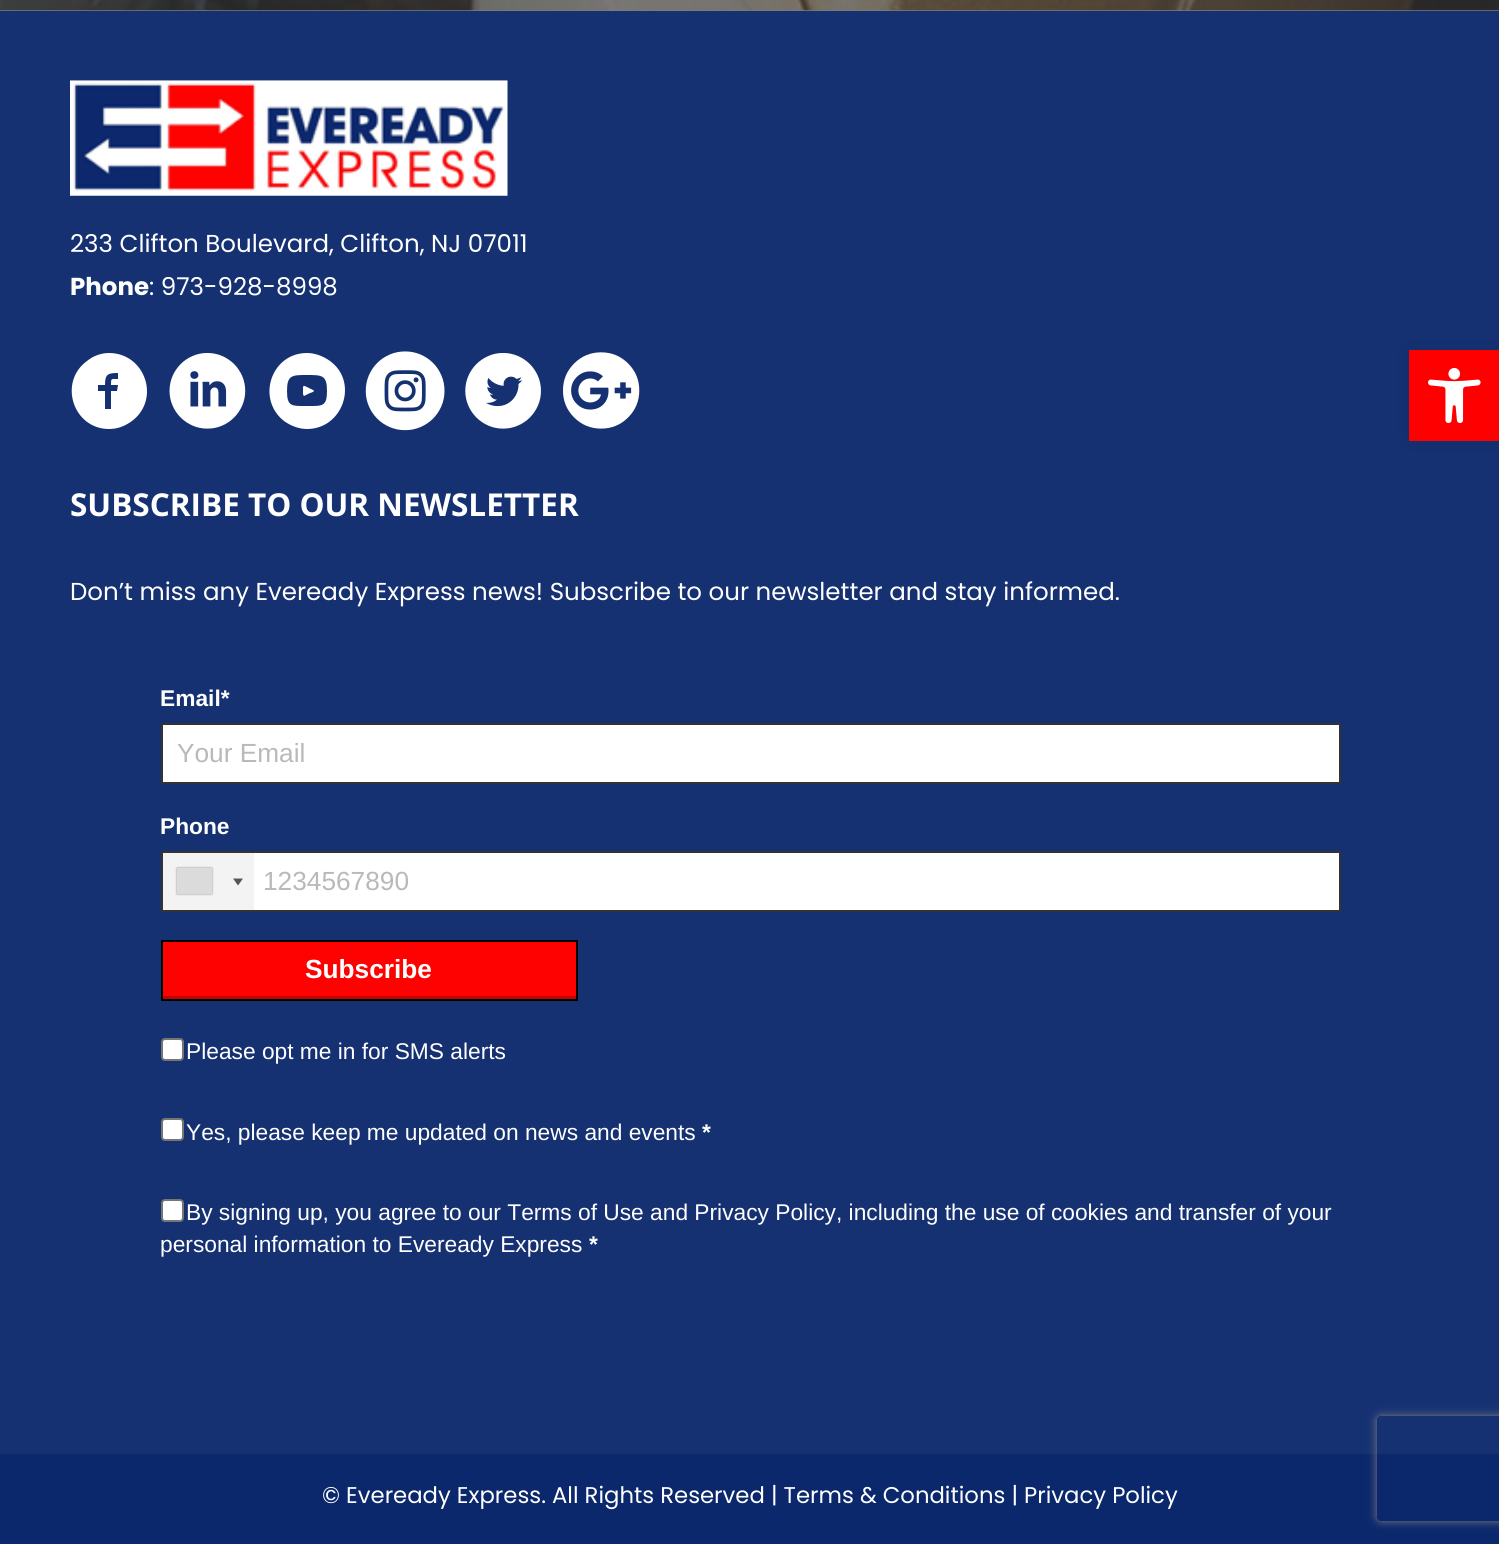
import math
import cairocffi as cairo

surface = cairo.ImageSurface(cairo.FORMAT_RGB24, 1499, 1544)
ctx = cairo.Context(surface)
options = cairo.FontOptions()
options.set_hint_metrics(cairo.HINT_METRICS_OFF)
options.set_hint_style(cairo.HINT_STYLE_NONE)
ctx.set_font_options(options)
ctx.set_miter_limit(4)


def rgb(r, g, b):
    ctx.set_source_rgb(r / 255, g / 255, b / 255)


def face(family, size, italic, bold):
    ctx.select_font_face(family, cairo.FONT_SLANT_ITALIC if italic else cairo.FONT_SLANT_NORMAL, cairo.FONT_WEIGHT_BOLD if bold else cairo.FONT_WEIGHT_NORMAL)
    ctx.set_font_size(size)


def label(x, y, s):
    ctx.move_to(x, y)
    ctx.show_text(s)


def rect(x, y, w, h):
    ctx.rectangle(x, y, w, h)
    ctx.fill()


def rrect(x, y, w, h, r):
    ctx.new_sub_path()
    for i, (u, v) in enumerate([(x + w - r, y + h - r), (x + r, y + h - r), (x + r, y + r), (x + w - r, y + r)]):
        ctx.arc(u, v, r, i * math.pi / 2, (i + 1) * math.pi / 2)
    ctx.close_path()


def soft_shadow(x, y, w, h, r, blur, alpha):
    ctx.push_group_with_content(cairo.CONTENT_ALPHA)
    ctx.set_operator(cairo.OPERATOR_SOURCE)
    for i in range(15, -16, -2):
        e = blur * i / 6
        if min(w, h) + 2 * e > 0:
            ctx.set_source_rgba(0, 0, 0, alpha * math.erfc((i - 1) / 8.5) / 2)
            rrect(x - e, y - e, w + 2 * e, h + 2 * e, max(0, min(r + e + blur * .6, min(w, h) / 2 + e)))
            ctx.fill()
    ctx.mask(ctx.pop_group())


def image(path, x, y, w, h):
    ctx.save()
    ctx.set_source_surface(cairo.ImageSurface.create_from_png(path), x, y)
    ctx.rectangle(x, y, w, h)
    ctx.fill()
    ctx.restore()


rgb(124, 124, 124)
ctx.paint()
image('image0.png', 0, 0, 1499, 11)
rgb(21, 49, 114)
rect(0, 11, 1499, 1443)
image('image1.png', 70, 80, 438, 116)
face('Poppins', 24.5, 0, 0)
rgb(255, 255, 255)
label(70, 252, '233 Clifton Boulevard, Clifton, NJ 07011')
face('Poppins', 24.5, 0, 1)
label(70, 295, 'Phone')
face('Poppins', 24.5, 0, 0)
label(149, 295, ': 973-928-8998')
ctx.new_path()
ctx.move_to(109, 353)
ctx.curve_to(101, 353, 93, 356, 87, 361)
ctx.curve_to(58, 382, 73, 429, 109, 429)
ctx.curve_to(118, 429, 125, 426, 132, 421)
ctx.curve_to(161, 399, 145, 353, 109, 353)
ctx.close_path()
ctx.move_to(118, 379)
ctx.curve_to(111, 379, 111, 378, 111, 385)
ctx.line_to(118, 385)
ctx.line_to(117, 391)
ctx.line_to(111, 391)
ctx.line_to(111, 409)
ctx.line_to(105, 409)
ctx.line_to(105, 391)
ctx.line_to(98, 391)
ctx.line_to(98, 385)
ctx.line_to(105, 385)
ctx.curve_to(105, 374, 108, 373, 118, 373)
ctx.close_path()
ctx.fill()
image('image2.png', 169, 353, 77, 76)
ctx.new_path()
ctx.move_to(313, 390)
ctx.curve_to(302, 385, 303, 383, 303, 393)
ctx.curve_to(303, 394, 303, 395, 304, 396)
ctx.line_to(310, 393)
ctx.curve_to(311, 393, 316, 391, 313, 390)
ctx.close_path()
ctx.move_to(307, 353)
ctx.curve_to(271, 353, 256, 399, 284, 421)
ctx.curve_to(291, 426, 299, 429, 307, 429)
ctx.curve_to(343, 429, 359, 382, 330, 361)
ctx.curve_to(323, 356, 315, 353, 307, 353)
ctx.close_path()
ctx.move_to(307, 406)
ctx.curve_to(292, 406, 287, 407, 287, 391)
ctx.curve_to(287, 375, 292, 375, 307, 375)
ctx.curve_to(322, 375, 327, 375, 327, 391)
ctx.curve_to(327, 407, 322, 406, 307, 406)
ctx.close_path()
ctx.fill()
image('image3.png', 365, 351, 80, 80)
image('image4.png', 465, 353, 76, 76)
image('image5.png', 563, 352, 77, 77)
face('Open Sans', 31.5, 0, 1)
label(70, 516, 'SUBSCRIBE TO OUR NEWSLETTER')
face('Poppins', 24.5, 0, 0)
label(70, 600, 'Don’t miss any Eveready Express news! Subscribe to our newsletter and stay informed.')
face('Liberation Sans', 22.75, 0, 1)
label(160, 706, 'Email*')
ctx.rectangle(162, 724, 1178, 59)
ctx.fill_preserve()
rgb(51, 51, 51)
ctx.stroke()
face('Liberation Sans', 26.25, 0, 0)
rgb(185, 185, 185)
label(177, 762, 'Your Email')
face('Liberation Sans', 22.75, 0, 1)
rgb(255, 255, 255)
label(160, 834, 'Phone')
ctx.rectangle(162, 852, 1178, 59)
ctx.fill_preserve()
rgb(51, 51, 51)
ctx.stroke()
ctx.set_source_rgba(0, 0, 0, 0.05)
rect(163, 853, 91, 57)
rgb(136, 136, 136)
soft_shadow(177, 868, 35, 26, 0, 1, 1)
rgb(219, 219, 219)
rect(177, 868, 35, 26)
rgb(85, 85, 85)
ctx.new_path()
ctx.move_to(233, 878.5)
ctx.line_to(243, 878.5)
ctx.line_to(238, 885.5)
ctx.close_path()
ctx.fill()
face('Liberation Sans', 26.25, 0, 0)
rgb(185, 185, 185)
label(263, 890, '1234567890')
rgb(254, 2, 1)
rect(163, 942, 413, 54)
rgb(193, 2, 1)
rect(163, 996, 413, 3)
ctx.rectangle(162, 941, 415, 59)
rgb(0, 0, 0)
ctx.stroke()
face('Liberation Sans', 26.25, 0, 1)
rgb(255, 255, 255)
label(305, 978, 'Subscribe')
rrect(162, 1039, 21, 21, 3)
ctx.fill_preserve()
rgb(118, 118, 118)
ctx.stroke()
face('Liberation Sans', 22.75, 0, 0)
rgb(255, 255, 255)
label(186, 1059, 'Please opt me in for SMS alerts')
rrect(162, 1119, 21, 21, 3)
ctx.fill_preserve()
rgb(118, 118, 118)
ctx.stroke()
rgb(255, 255, 255)
label(186, 1140, 'Yes, please keep me updated on news and events')
face('Liberation Sans', 22.75, 0, 1)
label(702, 1140, '*')
rrect(162, 1200, 21, 21, 3)
ctx.fill_preserve()
rgb(118, 118, 118)
ctx.stroke()
face('Liberation Sans', 22.75, 0, 0)
rgb(255, 255, 255)
label(186, 1220, 'By signing up, you agree to our Terms of Use and Privacy Policy, including the use of cookies and transfer of your')
label(160, 1252, 'personal information to Eveready Express')
face('Liberation Sans', 22.75, 0, 1)
label(589, 1252, '*')
rgb(11, 40, 108)
rect(0, 1454, 1499, 90)
face('Poppins', 22.75, 0, 0)
rgb(255, 255, 255)
label(322, 1503, '© Eveready Express. All Rights Reserved | Terms & Conditions | Privacy Policy')
rgb(0, 0, 0)
soft_shadow(1409, 350, 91, 91, 0, 9, 0.1)
rgb(254, 0, 0)
rect(1409, 350, 90, 91)
image('image6.png', 1428, 368, 53, 56)
ctx.save()
ctx.set_fill_rule(cairo.FILL_RULE_EVEN_ODD)
ctx.new_path()
ctx.move_to(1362, 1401)
ctx.line_to(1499, 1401)
ctx.line_to(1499, 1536)
ctx.line_to(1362, 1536)
ctx.close_path()
ctx.move_to(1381, 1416)
ctx.line_to(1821, 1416)
ctx.curve_to(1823, 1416, 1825, 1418, 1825, 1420)
ctx.line_to(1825, 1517)
ctx.curve_to(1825, 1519, 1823, 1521, 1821, 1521)
ctx.line_to(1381, 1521)
ctx.curve_to(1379, 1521, 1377, 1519, 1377, 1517)
ctx.line_to(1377, 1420)
ctx.curve_to(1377, 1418, 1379, 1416, 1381, 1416)
ctx.close_path()
ctx.clip()
rgb(128, 128, 128)
soft_shadow(1377, 1416, 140, 105, 4, 4.5, 1)
ctx.restore()
surface.write_to_png('render.png')
